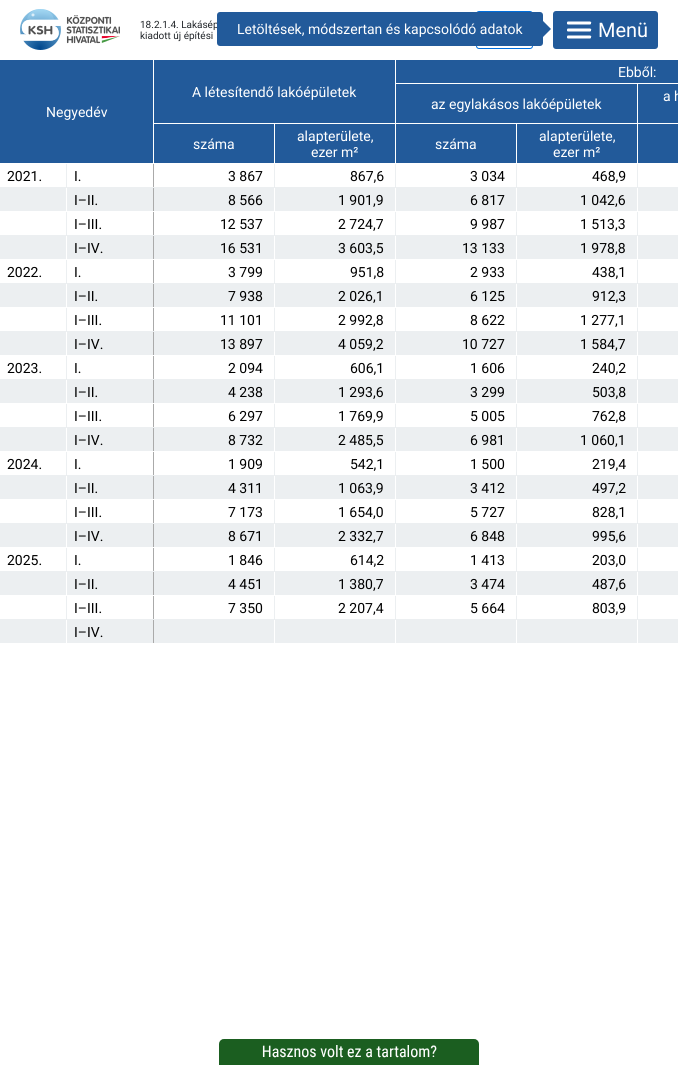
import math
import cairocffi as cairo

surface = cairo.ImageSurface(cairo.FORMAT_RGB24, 678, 1065)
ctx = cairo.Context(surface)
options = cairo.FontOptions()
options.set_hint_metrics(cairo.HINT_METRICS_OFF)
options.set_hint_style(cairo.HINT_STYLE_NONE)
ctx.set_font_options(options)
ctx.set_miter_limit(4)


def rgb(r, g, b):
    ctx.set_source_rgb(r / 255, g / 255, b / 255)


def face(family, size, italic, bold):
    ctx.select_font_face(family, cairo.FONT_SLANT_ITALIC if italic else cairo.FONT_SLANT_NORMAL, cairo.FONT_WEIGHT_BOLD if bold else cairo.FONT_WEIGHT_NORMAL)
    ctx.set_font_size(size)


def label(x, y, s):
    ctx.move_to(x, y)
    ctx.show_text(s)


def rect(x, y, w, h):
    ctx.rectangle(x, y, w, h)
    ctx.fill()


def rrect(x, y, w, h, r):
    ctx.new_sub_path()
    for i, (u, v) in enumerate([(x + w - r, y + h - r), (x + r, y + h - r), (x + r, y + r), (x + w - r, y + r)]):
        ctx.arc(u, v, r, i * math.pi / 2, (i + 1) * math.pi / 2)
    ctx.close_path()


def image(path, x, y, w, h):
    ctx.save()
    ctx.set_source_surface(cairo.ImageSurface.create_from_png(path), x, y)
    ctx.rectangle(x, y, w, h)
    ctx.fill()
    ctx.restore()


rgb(255, 255, 255)
ctx.paint()
image('image0.png', 20, 9, 100, 41)
face('Roboto', 10, 0, 0)
rgb(33, 37, 41)
label(140, 28, '18.2.1.4. Lakásép')
label(140, 39, 'kiadott új építési')
rrect(476.5, 11.5, 56, 37, 2.5)
rgb(0, 110, 220)
ctx.set_line_width(1)
ctx.stroke()
rgb(34, 90, 154)
rrect(217, 12, 326, 34, 3)
ctx.fill()
face('Roboto', 14, 0, 0)
rgb(255, 255, 255)
label(237, 34, 'Letöltések, módszertan és kapcsolódó adatok')
rgb(34, 90, 154)
ctx.new_path()
ctx.move_to(543, 37)
ctx.line_to(543, 21)
ctx.line_to(551, 29)
ctx.close_path()
ctx.fill()
rrect(553, 11, 105, 38, 3)
ctx.fill()
image('image1.png', 567, 21, 25, 18)
face('Roboto', 20, 0, 0)
rgb(255, 255, 255)
label(598, 37, 'Menü')
rgb(34, 90, 154)
rect(396, 60, 282, 23)
face('Roboto', 14, 0, 0)
rgb(255, 255, 255)
label(618, 77, 'Ebből:')
rgb(34, 90, 154)
rect(154, 60, 241, 63)
rgb(255, 255, 255)
label(192, 97, 'A létesítendő lakóépületek')
rgb(34, 90, 154)
rect(0, 60, 153, 103)
rgb(255, 255, 255)
label(46, 117, 'Negyedév')
rgb(34, 90, 154)
rect(638, 84, 40, 39)
rgb(255, 255, 255)
label(663, 101, 'a h')
rgb(34, 90, 154)
rect(396, 84, 241, 39)
rgb(255, 255, 255)
label(431, 109, 'az egylakásos lakóépületek')
rgb(34, 90, 154)
rect(154, 124, 120, 39)
rgb(255, 255, 255)
label(193, 149, 'száma')
rgb(34, 90, 154)
rect(275, 124, 120, 39)
rgb(255, 255, 255)
label(297, 141, 'alapterülete,')
label(311, 157, 'ezer m²')
rgb(34, 90, 154)
rect(396, 124, 120, 39)
rgb(255, 255, 255)
label(435, 149, 'száma')
rgb(34, 90, 154)
rect(517, 124, 120, 39)
rgb(255, 255, 255)
label(539, 141, 'alapterülete,')
label(553, 157, 'ezer m²')
rgb(34, 90, 154)
rect(638, 124, 40, 39)
rgb(236, 239, 241)
rect(66, 164, 1, 24)
rect(0, 187, 67, 1)
rgb(0, 0, 0)
label(7, 181, '2021.')
rgb(170, 170, 170)
rect(153, 164, 1, 480)
rgb(236, 239, 241)
rect(67, 187, 87, 1)
rgb(0, 0, 0)
label(74, 181, 'I.')
rgb(236, 239, 241)
rect(274, 164, 1, 24)
rect(154, 187, 121, 1)
rgb(0, 0, 0)
label(228, 181, '3 867')
rgb(236, 239, 241)
rect(395, 164, 1, 24)
rect(275, 187, 121, 1)
rgb(0, 0, 0)
label(350, 181, '867,6')
rgb(236, 239, 241)
rect(516, 164, 1, 24)
rect(396, 187, 121, 1)
rgb(0, 0, 0)
label(470, 181, '3 034')
rgb(236, 239, 241)
rect(637, 164, 1, 24)
rect(517, 187, 161, 1)
rgb(0, 0, 0)
label(592, 181, '468,9')
rgb(236, 239, 241)
rect(0, 188, 66, 23)
rect(67, 188, 86, 23)
rgb(255, 255, 255)
rect(153, 211, 1, 1)
rgb(0, 0, 0)
label(74, 205, 'I–II.')
rgb(236, 239, 241)
rect(154, 188, 120, 23)
rgb(0, 0, 0)
label(228, 205, '8 566')
rgb(236, 239, 241)
rect(275, 188, 120, 23)
rgb(0, 0, 0)
label(338, 205, '1 901,9')
rgb(236, 239, 241)
rect(396, 188, 120, 23)
rgb(0, 0, 0)
label(470, 205, '6 817')
rgb(236, 239, 241)
rect(517, 188, 120, 23)
rgb(0, 0, 0)
label(580, 205, '1 042,6')
rgb(236, 239, 241)
rect(638, 188, 40, 23)
rect(66, 212, 1, 24)
rect(0, 235, 67, 1)
rect(67, 235, 87, 1)
rgb(0, 0, 0)
label(74, 229, 'I–III.')
rgb(236, 239, 241)
rect(274, 212, 1, 24)
rect(154, 235, 121, 1)
rgb(0, 0, 0)
label(220, 229, '12 537')
rgb(236, 239, 241)
rect(395, 212, 1, 24)
rect(275, 235, 121, 1)
rgb(0, 0, 0)
label(338, 229, '2 724,7')
rgb(236, 239, 241)
rect(516, 212, 1, 24)
rect(396, 235, 121, 1)
rgb(0, 0, 0)
label(470, 229, '9 987')
rgb(236, 239, 241)
rect(637, 212, 1, 24)
rect(517, 235, 161, 1)
rgb(0, 0, 0)
label(580, 229, '1 513,3')
rgb(236, 239, 241)
rect(0, 236, 66, 23)
rect(67, 236, 86, 23)
rgb(255, 255, 255)
rect(153, 259, 1, 1)
rgb(0, 0, 0)
label(74, 253, 'I–IV.')
rgb(236, 239, 241)
rect(154, 236, 120, 23)
rgb(0, 0, 0)
label(220, 253, '16 531')
rgb(236, 239, 241)
rect(275, 236, 120, 23)
rgb(0, 0, 0)
label(338, 253, '3 603,5')
rgb(236, 239, 241)
rect(396, 236, 120, 23)
rgb(0, 0, 0)
label(462, 253, '13 133')
rgb(236, 239, 241)
rect(517, 236, 120, 23)
rgb(0, 0, 0)
label(580, 253, '1 978,8')
rgb(236, 239, 241)
rect(638, 236, 40, 23)
rect(66, 260, 1, 24)
rect(0, 283, 67, 1)
rgb(0, 0, 0)
label(7, 277, '2022.')
rgb(236, 239, 241)
rect(67, 283, 87, 1)
rgb(0, 0, 0)
label(74, 277, 'I.')
rgb(236, 239, 241)
rect(274, 260, 1, 24)
rect(154, 283, 121, 1)
rgb(0, 0, 0)
label(228, 277, '3 799')
rgb(236, 239, 241)
rect(395, 260, 1, 24)
rect(275, 283, 121, 1)
rgb(0, 0, 0)
label(350, 277, '951,8')
rgb(236, 239, 241)
rect(516, 260, 1, 24)
rect(396, 283, 121, 1)
rgb(0, 0, 0)
label(470, 277, '2 933')
rgb(236, 239, 241)
rect(637, 260, 1, 24)
rect(517, 283, 161, 1)
rgb(0, 0, 0)
label(592, 277, '438,1')
rgb(236, 239, 241)
rect(0, 284, 66, 23)
rect(67, 284, 86, 23)
rgb(255, 255, 255)
rect(153, 307, 1, 1)
rgb(0, 0, 0)
label(74, 301, 'I–II.')
rgb(236, 239, 241)
rect(154, 284, 120, 23)
rgb(0, 0, 0)
label(228, 301, '7 938')
rgb(236, 239, 241)
rect(275, 284, 120, 23)
rgb(0, 0, 0)
label(338, 301, '2 026,1')
rgb(236, 239, 241)
rect(396, 284, 120, 23)
rgb(0, 0, 0)
label(470, 301, '6 125')
rgb(236, 239, 241)
rect(517, 284, 120, 23)
rgb(0, 0, 0)
label(592, 301, '912,3')
rgb(236, 239, 241)
rect(638, 284, 40, 23)
rect(66, 308, 1, 24)
rect(0, 331, 67, 1)
rect(67, 331, 87, 1)
rgb(0, 0, 0)
label(74, 325, 'I–III.')
rgb(236, 239, 241)
rect(274, 308, 1, 24)
rect(154, 331, 121, 1)
rgb(0, 0, 0)
label(220, 325, '11 101')
rgb(236, 239, 241)
rect(395, 308, 1, 24)
rect(275, 331, 121, 1)
rgb(0, 0, 0)
label(338, 325, '2 992,8')
rgb(236, 239, 241)
rect(516, 308, 1, 24)
rect(396, 331, 121, 1)
rgb(0, 0, 0)
label(470, 325, '8 622')
rgb(236, 239, 241)
rect(637, 308, 1, 24)
rect(517, 331, 161, 1)
rgb(0, 0, 0)
label(580, 325, '1 277,1')
rgb(236, 239, 241)
rect(0, 332, 66, 23)
rect(67, 332, 86, 23)
rgb(255, 255, 255)
rect(153, 355, 1, 1)
rgb(0, 0, 0)
label(74, 349, 'I–IV.')
rgb(236, 239, 241)
rect(154, 332, 120, 23)
rgb(0, 0, 0)
label(220, 349, '13 897')
rgb(236, 239, 241)
rect(275, 332, 120, 23)
rgb(0, 0, 0)
label(338, 349, '4 059,2')
rgb(236, 239, 241)
rect(396, 332, 120, 23)
rgb(0, 0, 0)
label(462, 349, '10 727')
rgb(236, 239, 241)
rect(517, 332, 120, 23)
rgb(0, 0, 0)
label(580, 349, '1 584,7')
rgb(236, 239, 241)
rect(638, 332, 40, 23)
rect(66, 356, 1, 24)
rect(0, 379, 67, 1)
rgb(0, 0, 0)
label(7, 373, '2023.')
rgb(236, 239, 241)
rect(67, 379, 87, 1)
rgb(0, 0, 0)
label(74, 373, 'I.')
rgb(236, 239, 241)
rect(274, 356, 1, 24)
rect(154, 379, 121, 1)
rgb(0, 0, 0)
label(228, 373, '2 094')
rgb(236, 239, 241)
rect(395, 356, 1, 24)
rect(275, 379, 121, 1)
rgb(0, 0, 0)
label(350, 373, '606,1')
rgb(236, 239, 241)
rect(516, 356, 1, 24)
rect(396, 379, 121, 1)
rgb(0, 0, 0)
label(470, 373, '1 606')
rgb(236, 239, 241)
rect(637, 356, 1, 24)
rect(517, 379, 161, 1)
rgb(0, 0, 0)
label(592, 373, '240,2')
rgb(236, 239, 241)
rect(0, 380, 66, 23)
rect(67, 380, 86, 23)
rgb(255, 255, 255)
rect(153, 403, 1, 1)
rgb(0, 0, 0)
label(74, 397, 'I–II.')
rgb(236, 239, 241)
rect(154, 380, 120, 23)
rgb(0, 0, 0)
label(228, 397, '4 238')
rgb(236, 239, 241)
rect(275, 380, 120, 23)
rgb(0, 0, 0)
label(338, 397, '1 293,6')
rgb(236, 239, 241)
rect(396, 380, 120, 23)
rgb(0, 0, 0)
label(470, 397, '3 299')
rgb(236, 239, 241)
rect(517, 380, 120, 23)
rgb(0, 0, 0)
label(592, 397, '503,8')
rgb(236, 239, 241)
rect(638, 380, 40, 23)
rect(66, 404, 1, 24)
rect(0, 427, 67, 1)
rect(67, 427, 87, 1)
rgb(0, 0, 0)
label(74, 421, 'I–III.')
rgb(236, 239, 241)
rect(274, 404, 1, 24)
rect(154, 427, 121, 1)
rgb(0, 0, 0)
label(228, 421, '6 297')
rgb(236, 239, 241)
rect(395, 404, 1, 24)
rect(275, 427, 121, 1)
rgb(0, 0, 0)
label(338, 421, '1 769,9')
rgb(236, 239, 241)
rect(516, 404, 1, 24)
rect(396, 427, 121, 1)
rgb(0, 0, 0)
label(470, 421, '5 005')
rgb(236, 239, 241)
rect(637, 404, 1, 24)
rect(517, 427, 161, 1)
rgb(0, 0, 0)
label(592, 421, '762,8')
rgb(236, 239, 241)
rect(0, 428, 66, 23)
rect(67, 428, 86, 23)
rgb(255, 255, 255)
rect(153, 451, 1, 1)
rgb(0, 0, 0)
label(74, 445, 'I–IV.')
rgb(236, 239, 241)
rect(154, 428, 120, 23)
rgb(0, 0, 0)
label(228, 445, '8 732')
rgb(236, 239, 241)
rect(275, 428, 120, 23)
rgb(0, 0, 0)
label(338, 445, '2 485,5')
rgb(236, 239, 241)
rect(396, 428, 120, 23)
rgb(0, 0, 0)
label(470, 445, '6 981')
rgb(236, 239, 241)
rect(517, 428, 120, 23)
rgb(0, 0, 0)
label(580, 445, '1 060,1')
rgb(236, 239, 241)
rect(638, 428, 40, 23)
rect(66, 452, 1, 24)
rect(0, 475, 67, 1)
rgb(0, 0, 0)
label(7, 469, '2024.')
rgb(236, 239, 241)
rect(67, 475, 87, 1)
rgb(0, 0, 0)
label(74, 469, 'I.')
rgb(236, 239, 241)
rect(274, 452, 1, 24)
rect(154, 475, 121, 1)
rgb(0, 0, 0)
label(228, 469, '1 909')
rgb(236, 239, 241)
rect(395, 452, 1, 24)
rect(275, 475, 121, 1)
rgb(0, 0, 0)
label(350, 469, '542,1')
rgb(236, 239, 241)
rect(516, 452, 1, 24)
rect(396, 475, 121, 1)
rgb(0, 0, 0)
label(470, 469, '1 500')
rgb(236, 239, 241)
rect(637, 452, 1, 24)
rect(517, 475, 161, 1)
rgb(0, 0, 0)
label(592, 469, '219,4')
rgb(236, 239, 241)
rect(0, 476, 66, 23)
rect(67, 476, 86, 23)
rgb(255, 255, 255)
rect(153, 499, 1, 1)
rgb(0, 0, 0)
label(74, 493, 'I–II.')
rgb(236, 239, 241)
rect(154, 476, 120, 23)
rgb(0, 0, 0)
label(228, 493, '4 311')
rgb(236, 239, 241)
rect(275, 476, 120, 23)
rgb(0, 0, 0)
label(338, 493, '1 063,9')
rgb(236, 239, 241)
rect(396, 476, 120, 23)
rgb(0, 0, 0)
label(470, 493, '3 412')
rgb(236, 239, 241)
rect(517, 476, 120, 23)
rgb(0, 0, 0)
label(592, 493, '497,2')
rgb(236, 239, 241)
rect(638, 476, 40, 23)
rect(66, 500, 1, 24)
rect(0, 523, 67, 1)
rect(67, 523, 87, 1)
rgb(0, 0, 0)
label(74, 517, 'I–III.')
rgb(236, 239, 241)
rect(274, 500, 1, 24)
rect(154, 523, 121, 1)
rgb(0, 0, 0)
label(228, 517, '7 173')
rgb(236, 239, 241)
rect(395, 500, 1, 24)
rect(275, 523, 121, 1)
rgb(0, 0, 0)
label(338, 517, '1 654,0')
rgb(236, 239, 241)
rect(516, 500, 1, 24)
rect(396, 523, 121, 1)
rgb(0, 0, 0)
label(470, 517, '5 727')
rgb(236, 239, 241)
rect(637, 500, 1, 24)
rect(517, 523, 161, 1)
rgb(0, 0, 0)
label(592, 517, '828,1')
rgb(236, 239, 241)
rect(0, 524, 66, 23)
rect(67, 524, 86, 23)
rgb(255, 255, 255)
rect(153, 547, 1, 1)
rgb(0, 0, 0)
label(74, 541, 'I–IV.')
rgb(236, 239, 241)
rect(154, 524, 120, 23)
rgb(0, 0, 0)
label(228, 541, '8 671')
rgb(236, 239, 241)
rect(275, 524, 120, 23)
rgb(0, 0, 0)
label(338, 541, '2 332,7')
rgb(236, 239, 241)
rect(396, 524, 120, 23)
rgb(0, 0, 0)
label(470, 541, '6 848')
rgb(236, 239, 241)
rect(517, 524, 120, 23)
rgb(0, 0, 0)
label(592, 541, '995,6')
rgb(236, 239, 241)
rect(638, 524, 40, 23)
rect(66, 548, 1, 24)
rect(0, 571, 67, 1)
rgb(0, 0, 0)
label(7, 565, '2025.')
rgb(236, 239, 241)
rect(67, 571, 87, 1)
rgb(0, 0, 0)
label(74, 565, 'I.')
rgb(236, 239, 241)
rect(274, 548, 1, 24)
rect(154, 571, 121, 1)
rgb(0, 0, 0)
label(228, 565, '1 846')
rgb(236, 239, 241)
rect(395, 548, 1, 24)
rect(275, 571, 121, 1)
rgb(0, 0, 0)
label(350, 565, '614,2')
rgb(236, 239, 241)
rect(516, 548, 1, 24)
rect(396, 571, 121, 1)
rgb(0, 0, 0)
label(470, 565, '1 413')
rgb(236, 239, 241)
rect(637, 548, 1, 24)
rect(517, 571, 161, 1)
rgb(0, 0, 0)
label(592, 565, '203,0')
rgb(236, 239, 241)
rect(0, 572, 66, 23)
rect(67, 572, 86, 23)
rgb(255, 255, 255)
rect(153, 595, 1, 1)
rgb(0, 0, 0)
label(74, 589, 'I–II.')
rgb(236, 239, 241)
rect(154, 572, 120, 23)
rgb(0, 0, 0)
label(228, 589, '4 451')
rgb(236, 239, 241)
rect(275, 572, 120, 23)
rgb(0, 0, 0)
label(338, 589, '1 380,7')
rgb(236, 239, 241)
rect(396, 572, 120, 23)
rgb(0, 0, 0)
label(470, 589, '3 474')
rgb(236, 239, 241)
rect(517, 572, 120, 23)
rgb(0, 0, 0)
label(592, 589, '487,6')
rgb(236, 239, 241)
rect(638, 572, 40, 23)
rect(66, 596, 1, 24)
rect(0, 619, 67, 1)
rect(67, 619, 87, 1)
rgb(0, 0, 0)
label(74, 613, 'I–III.')
rgb(236, 239, 241)
rect(274, 596, 1, 24)
rect(154, 619, 121, 1)
rgb(0, 0, 0)
label(228, 613, '7 350')
rgb(236, 239, 241)
rect(395, 596, 1, 24)
rect(275, 619, 121, 1)
rgb(0, 0, 0)
label(338, 613, '2 207,4')
rgb(236, 239, 241)
rect(516, 596, 1, 24)
rect(396, 619, 121, 1)
rgb(0, 0, 0)
label(470, 613, '5 664')
rgb(236, 239, 241)
rect(637, 596, 1, 24)
rect(517, 619, 161, 1)
rgb(0, 0, 0)
label(592, 613, '803,9')
rgb(236, 239, 241)
rect(0, 620, 66, 23)
rect(67, 620, 86, 23)
rgb(255, 255, 255)
rect(153, 643, 1, 1)
rgb(0, 0, 0)
label(74, 637, 'I–IV.')
rgb(236, 239, 241)
rect(154, 620, 120, 23)
rect(275, 620, 120, 23)
rect(396, 620, 120, 23)
rect(517, 620, 120, 23)
rect(638, 620, 40, 23)
image('image2.png', 219, 1039, 260, 26)
surface.write_to_png('render.png')
